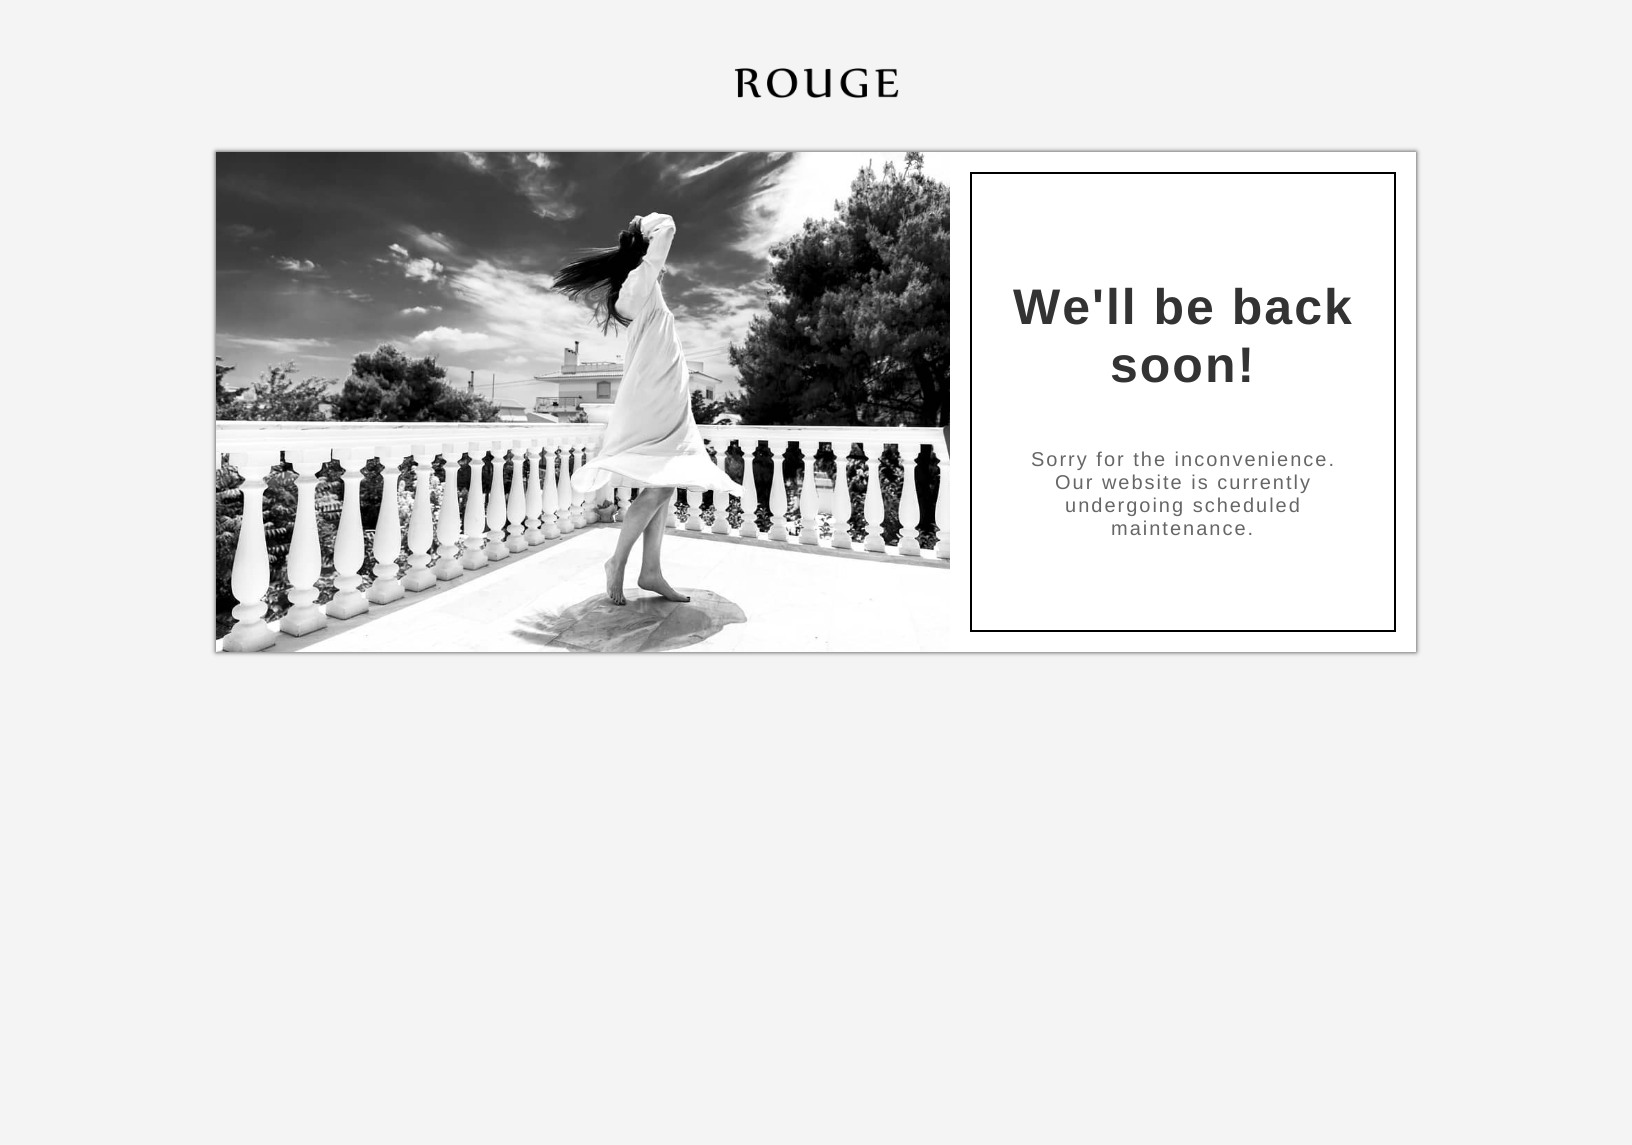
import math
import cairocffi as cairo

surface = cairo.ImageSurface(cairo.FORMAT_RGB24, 1632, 1145)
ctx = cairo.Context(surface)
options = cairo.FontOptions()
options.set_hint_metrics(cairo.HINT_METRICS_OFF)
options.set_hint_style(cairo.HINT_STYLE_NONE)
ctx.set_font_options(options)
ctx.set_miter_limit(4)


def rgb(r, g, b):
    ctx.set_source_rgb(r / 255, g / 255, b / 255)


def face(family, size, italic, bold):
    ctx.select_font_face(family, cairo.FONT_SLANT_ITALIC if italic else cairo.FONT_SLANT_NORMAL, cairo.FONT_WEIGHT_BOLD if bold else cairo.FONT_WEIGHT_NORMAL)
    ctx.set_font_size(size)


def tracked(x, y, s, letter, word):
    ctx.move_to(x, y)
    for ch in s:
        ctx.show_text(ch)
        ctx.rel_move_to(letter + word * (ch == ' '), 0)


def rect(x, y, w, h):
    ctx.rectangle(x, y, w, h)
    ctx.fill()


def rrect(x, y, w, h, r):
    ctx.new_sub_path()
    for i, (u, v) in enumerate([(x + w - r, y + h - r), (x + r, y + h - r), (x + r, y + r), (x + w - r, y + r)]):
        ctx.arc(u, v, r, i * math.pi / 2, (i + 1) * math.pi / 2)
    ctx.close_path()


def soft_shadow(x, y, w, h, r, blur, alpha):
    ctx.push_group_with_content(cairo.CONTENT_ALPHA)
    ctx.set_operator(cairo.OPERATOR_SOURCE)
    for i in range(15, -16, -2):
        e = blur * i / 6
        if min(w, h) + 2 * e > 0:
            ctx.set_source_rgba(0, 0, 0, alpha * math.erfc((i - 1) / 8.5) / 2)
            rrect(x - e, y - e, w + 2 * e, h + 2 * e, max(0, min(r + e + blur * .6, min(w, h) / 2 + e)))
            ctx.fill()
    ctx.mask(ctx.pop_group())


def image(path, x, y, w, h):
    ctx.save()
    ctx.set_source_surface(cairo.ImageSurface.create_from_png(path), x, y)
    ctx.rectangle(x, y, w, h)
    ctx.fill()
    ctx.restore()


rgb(244, 244, 244)
ctx.paint()
image('image0.png', 734, 68, 165, 30)
rgb(54, 54, 54)
soft_shadow(216, 152, 1200, 500, 0, 2.5, 1)
rgb(255, 255, 255)
rect(950, 152, 466, 500)
image('image1.png', 216, 152, 734, 500)
ctx.rectangle(971, 173, 424, 458)
rgb(0, 0, 0)
ctx.stroke()
face('Liberation Sans', 50, 0, 1)
rgb(51, 51, 51)
tracked(1013, 324, 'We\'ll be back', 2, 0)
tracked(1110, 382, 'soon!', 2, 0)
face('Liberation Sans', 20, 0, 0)
rgb(102, 102, 102)
tracked(1031, 466, 'Sorry for the inconvenience.', 2, 0)
tracked(1055, 489, 'Our website is currently', 2, 0)
tracked(1065, 512, 'undergoing scheduled', 2, 0)
tracked(1111, 535, 'maintenance.', 2, 0)
surface.write_to_png('render.png')
